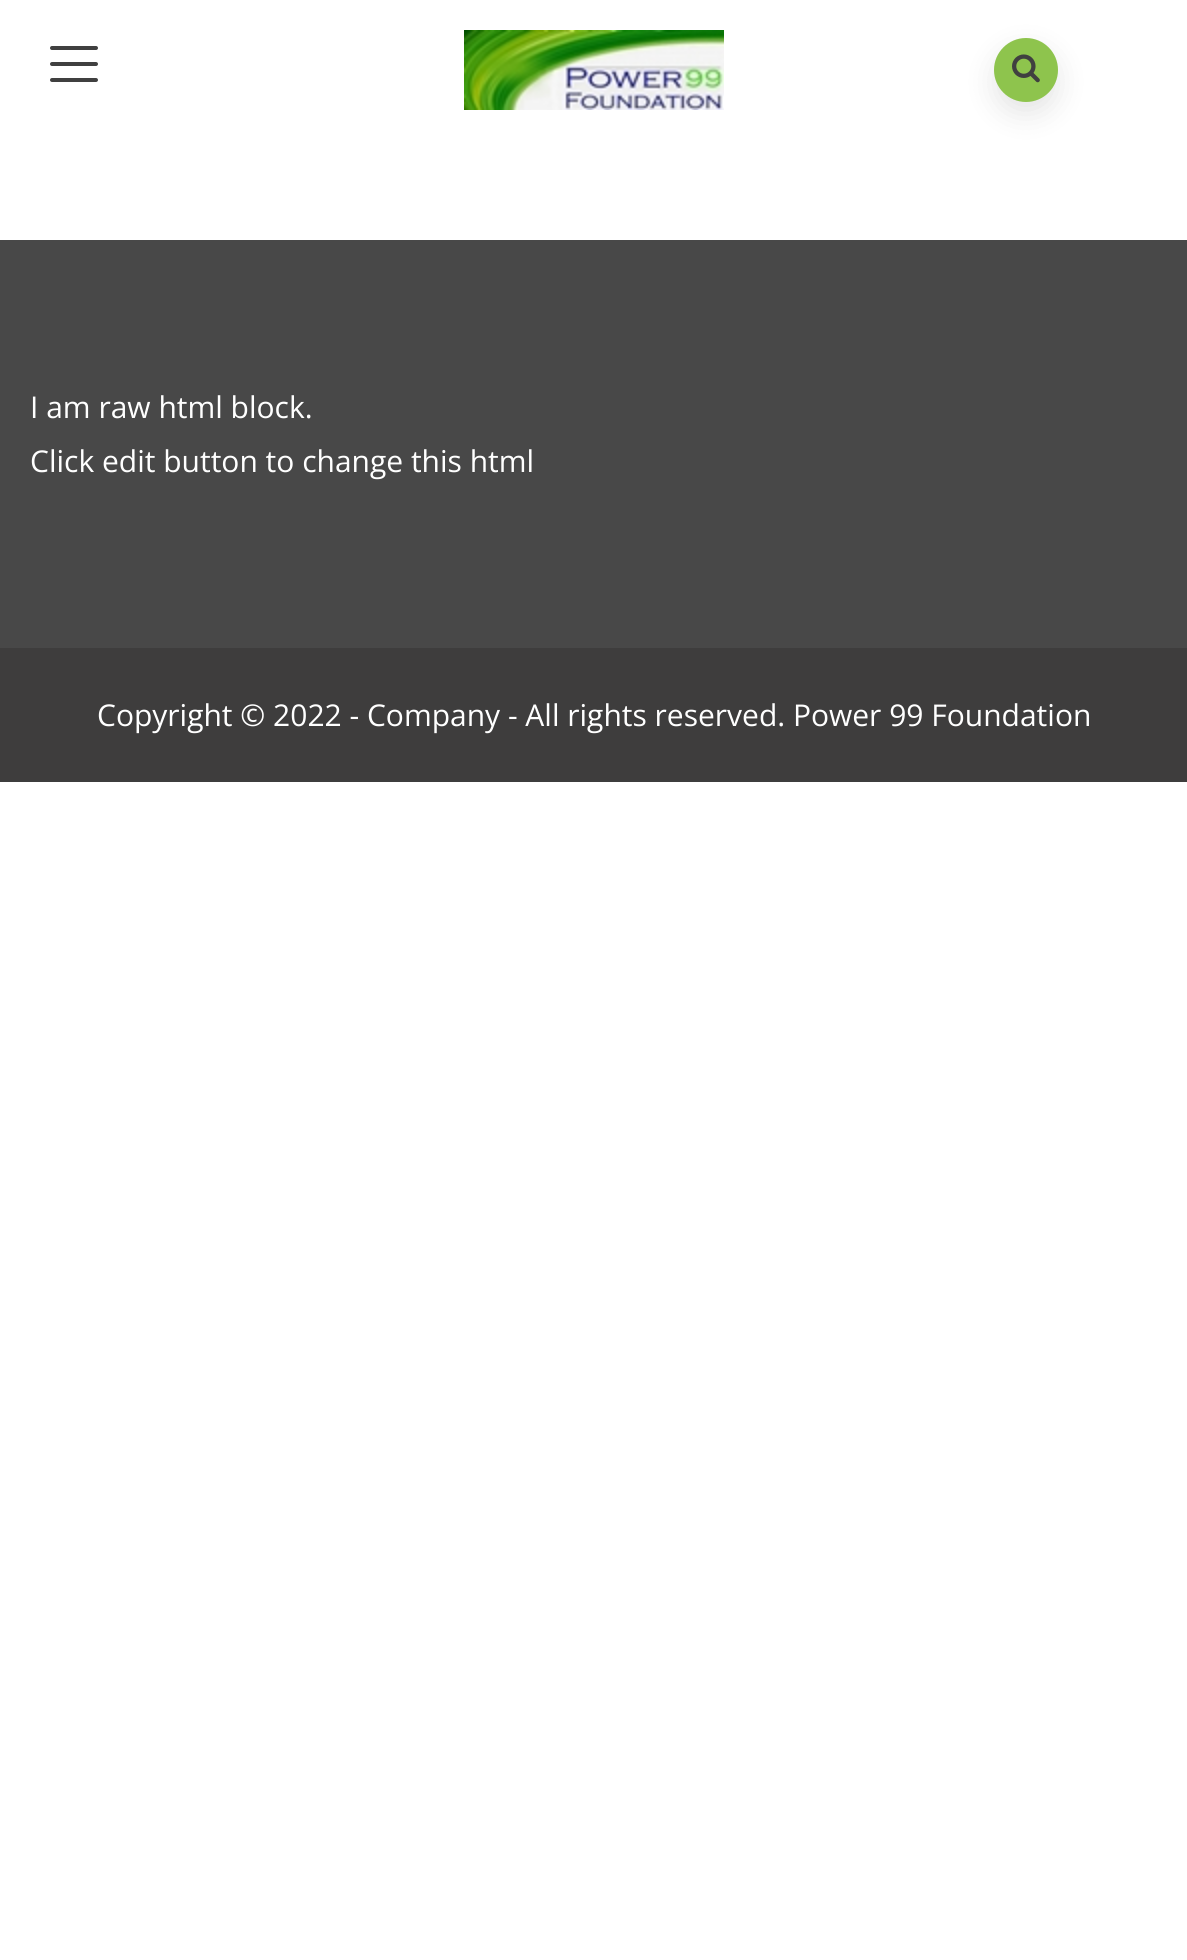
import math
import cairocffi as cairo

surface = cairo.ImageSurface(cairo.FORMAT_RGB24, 1187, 1960)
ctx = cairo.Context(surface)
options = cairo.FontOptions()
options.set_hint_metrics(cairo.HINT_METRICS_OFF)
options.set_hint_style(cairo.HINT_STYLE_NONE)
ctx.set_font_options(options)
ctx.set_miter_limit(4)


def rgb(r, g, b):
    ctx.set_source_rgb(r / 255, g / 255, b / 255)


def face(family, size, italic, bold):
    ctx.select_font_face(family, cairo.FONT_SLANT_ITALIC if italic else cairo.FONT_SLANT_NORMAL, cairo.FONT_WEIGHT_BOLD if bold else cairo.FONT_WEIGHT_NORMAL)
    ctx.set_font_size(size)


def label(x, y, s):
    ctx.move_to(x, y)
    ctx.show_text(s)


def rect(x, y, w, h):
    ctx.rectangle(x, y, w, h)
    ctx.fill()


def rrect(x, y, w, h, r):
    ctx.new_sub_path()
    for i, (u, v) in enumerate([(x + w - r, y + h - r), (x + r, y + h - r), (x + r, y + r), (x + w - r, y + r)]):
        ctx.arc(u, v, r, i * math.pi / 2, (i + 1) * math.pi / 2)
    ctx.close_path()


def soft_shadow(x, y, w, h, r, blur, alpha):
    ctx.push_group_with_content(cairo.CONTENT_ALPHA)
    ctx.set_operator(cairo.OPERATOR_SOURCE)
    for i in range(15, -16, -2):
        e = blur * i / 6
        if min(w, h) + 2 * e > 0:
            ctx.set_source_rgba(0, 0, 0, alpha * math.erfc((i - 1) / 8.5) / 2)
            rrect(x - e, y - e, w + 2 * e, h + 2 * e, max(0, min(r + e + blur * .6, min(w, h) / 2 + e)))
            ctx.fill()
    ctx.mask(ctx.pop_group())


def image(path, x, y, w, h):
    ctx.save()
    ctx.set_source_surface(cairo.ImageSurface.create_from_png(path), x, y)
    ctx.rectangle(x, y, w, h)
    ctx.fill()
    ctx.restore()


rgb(255, 255, 255)
ctx.paint()
image('image0.png', 50, 46, 48, 36)
image('image1.png', 464, 30, 260, 80)
rgb(0, 0, 0)
soft_shadow(994, 50, 64, 64, 32, 14, 0.1)
rgb(142, 196, 77)
ctx.arc(1026, 70, 32, 0, 2 * math.pi)
ctx.fill()
image('image2.png', 1012, 54, 28, 29)
rgb(72, 72, 72)
rect(0, 240, 1187, 408)
face('Open Sans', 30, 0, 0)
rgb(255, 255, 255)
label(30, 418, 'I am raw html block.')
label(30, 472, 'Click edit button to change this html')
rgb(62, 61, 61)
rect(0, 648, 1187, 134)
rgb(255, 255, 255)
label(97, 726, 'Copyright © 2022 - Company - All rights reserved. Power 99 Foundation')
surface.write_to_png('render.png')
